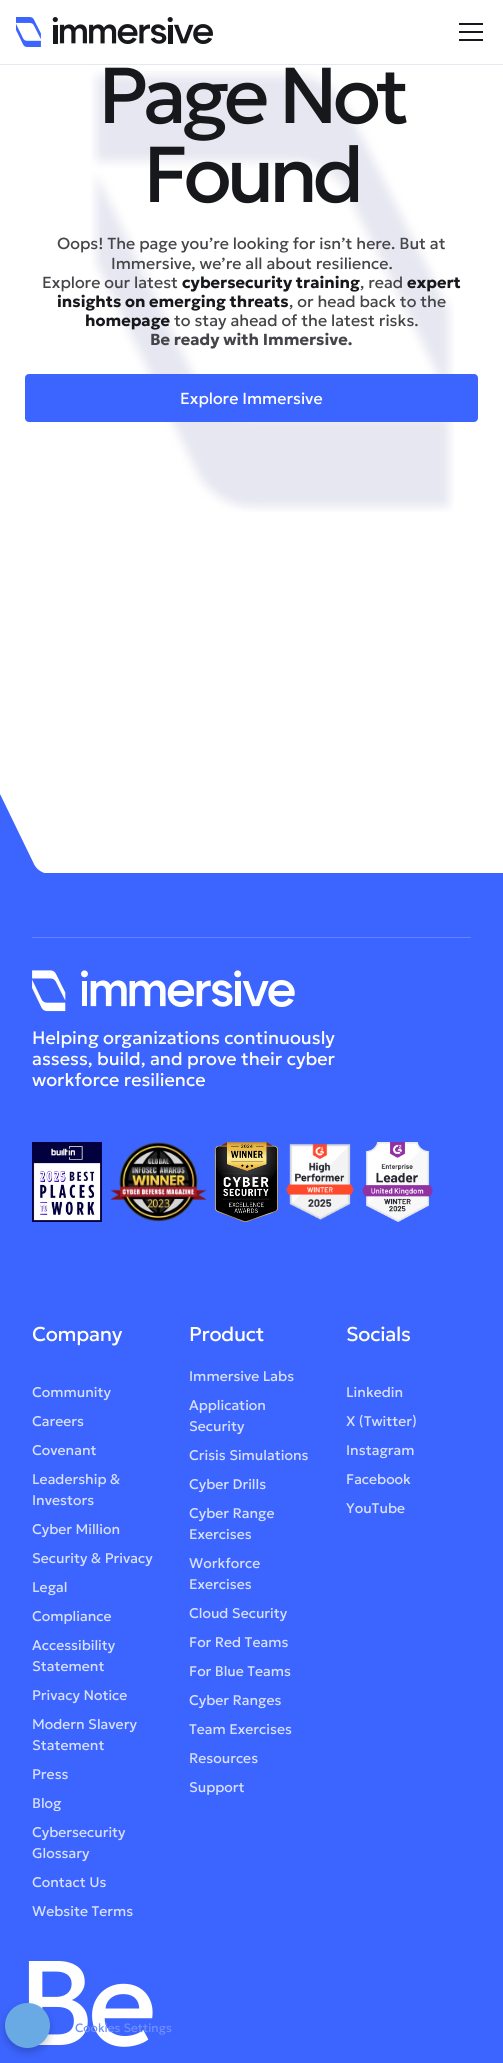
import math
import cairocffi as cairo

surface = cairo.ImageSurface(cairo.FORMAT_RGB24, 503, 2063)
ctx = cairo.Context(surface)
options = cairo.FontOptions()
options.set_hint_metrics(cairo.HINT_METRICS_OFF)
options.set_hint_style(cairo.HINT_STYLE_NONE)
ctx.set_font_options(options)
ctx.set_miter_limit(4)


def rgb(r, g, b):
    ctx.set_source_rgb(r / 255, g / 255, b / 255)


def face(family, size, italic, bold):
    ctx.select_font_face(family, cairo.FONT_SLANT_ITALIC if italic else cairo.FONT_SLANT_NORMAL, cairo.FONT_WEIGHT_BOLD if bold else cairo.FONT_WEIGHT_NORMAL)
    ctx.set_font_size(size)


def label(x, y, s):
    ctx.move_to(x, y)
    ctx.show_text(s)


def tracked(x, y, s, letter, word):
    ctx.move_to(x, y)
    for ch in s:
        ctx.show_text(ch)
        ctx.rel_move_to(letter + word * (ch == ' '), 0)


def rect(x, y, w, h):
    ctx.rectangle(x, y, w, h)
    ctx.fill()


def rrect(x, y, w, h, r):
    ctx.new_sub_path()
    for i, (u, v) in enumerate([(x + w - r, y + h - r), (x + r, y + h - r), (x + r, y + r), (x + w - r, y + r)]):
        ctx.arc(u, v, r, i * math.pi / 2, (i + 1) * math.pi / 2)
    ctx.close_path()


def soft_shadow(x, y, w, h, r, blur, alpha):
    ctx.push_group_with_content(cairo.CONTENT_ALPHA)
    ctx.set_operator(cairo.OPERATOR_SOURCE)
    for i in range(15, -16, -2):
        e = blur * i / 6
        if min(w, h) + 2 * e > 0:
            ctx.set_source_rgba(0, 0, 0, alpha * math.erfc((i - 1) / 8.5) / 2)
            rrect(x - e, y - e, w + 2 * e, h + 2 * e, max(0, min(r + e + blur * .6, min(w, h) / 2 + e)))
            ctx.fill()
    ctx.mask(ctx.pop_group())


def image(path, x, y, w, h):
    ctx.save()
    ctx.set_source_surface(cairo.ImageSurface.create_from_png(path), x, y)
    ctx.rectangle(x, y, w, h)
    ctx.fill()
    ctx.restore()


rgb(255, 255, 255)
ctx.paint()
rgb(231, 231, 241)
rect(0, 64, 503, 1)
image('image0.png', 16, 17, 197, 30)
rgb(23, 24, 28)
rect(459, 23, 24, 2)
rect(459, 31, 24, 2)
rect(459, 39, 24, 2)
image('image1.png', 91, 70, 363, 442)
face('Geologica', 79, 0, 0)
tracked(98, 123, 'Page Not', -5, 0)
tracked(143, 202, 'Found', -5, 0)
face('Geologica', 16, 0, 0)
rgb(69, 69, 73)
label(57, 249, 'Oops! The page you’re looking for isn’t here. But at')
label(111, 269, 'Immersive, we’re all about resilience.')
label(42, 288, 'Explore our latest')
face('Geologica', 16, 0, 1)
rgb(23, 24, 28)
label(182, 288, 'cybersecurity training')
face('Geologica', 16, 0, 0)
rgb(69, 69, 73)
label(360, 288, ', read')
face('Geologica', 16, 0, 1)
rgb(23, 24, 28)
label(407, 288, 'expert')
label(57, 307, 'insights on emerging threats')
face('Geologica', 16, 0, 0)
rgb(69, 69, 73)
label(289, 307, ', or head back to the')
face('Geologica', 16, 0, 1)
rgb(23, 24, 28)
label(85, 326, 'homepage')
face('Geologica', 16, 0, 0)
rgb(69, 69, 73)
label(174, 326, 'to stay ahead of the latest risks.')
face('Geologica', 16, 0, 1)
label(150, 345, 'Be ready with Immersive.')
rgb(60, 100, 255)
rrect(25, 374, 453, 48, 4)
ctx.fill()
face('Geologica', 16, 0, 0)
rgb(255, 255, 255)
label(180, 404, 'Explore Immersive')
rgb(60, 100, 255)
rect(0, 873, 503, 1190)
ctx.save()
ctx.rectangle(0, 794, 51, 80)
ctx.clip()
ctx.new_path()
ctx.move_to(431, 906)
ctx.line_to(0, 906)
ctx.line_to(0, 794)
ctx.line_to(33, 862)
ctx.curve_to(36, 870, 43, 874, 51, 874)
ctx.line_to(431, 874)
ctx.close_path()
ctx.fill()
ctx.restore()
rgb(99, 131, 255)
rect(32, 937, 439, 1)
image('image2.png', 32, 970, 263, 42)
face('Geologica', 18, 0, 0)
rgb(255, 255, 255)
label(32, 1044, 'Helping organizations continuously')
label(32, 1065, 'assess, build, and prove their cyber')
label(32, 1086, 'workforce resilience')
image('image3.png', 32, 1142, 70, 80)
image('image4.png', 110, 1142, 97, 80)
image('image5.png', 215, 1142, 63, 80)
image('image6.png', 286, 1143, 68, 77)
image('image7.png', 362, 1142, 71, 80)
face('Geologica', 20, 0, 0)
tracked(32, 1341, 'Company', -0.25, 0)
face('Geologica', 14, 0, 0)
rgb(216, 224, 255)
label(32, 1397, 'Community')
label(32, 1426, 'Careers')
label(32, 1455, 'Covenant')
label(32, 1484, 'Leadership &')
label(32, 1505, 'Investors')
label(32, 1534, 'Cyber Million')
label(32, 1563, 'Security & Privacy')
label(32, 1592, 'Legal')
label(32, 1621, 'Compliance')
label(32, 1650, 'Accessibility')
label(32, 1671, 'Statement')
label(32, 1700, 'Privacy Notice')
label(32, 1729, 'Modern Slavery')
label(32, 1750, 'Statement')
label(32, 1779, 'Press')
label(32, 1808, 'Blog')
label(32, 1837, 'Cybersecurity')
label(32, 1858, 'Glossary')
label(32, 1887, 'Contact Us')
label(32, 1916, 'Website Terms')
face('Geologica', 20, 0, 0)
rgb(255, 255, 255)
tracked(189, 1341, 'Product', -0.25, 0)
face('Geologica', 14, 0, 0)
rgb(216, 224, 255)
label(189, 1381, 'Immersive Labs')
label(189, 1410, 'Application')
label(189, 1431, 'Security')
label(189, 1460, 'Crisis Simulations')
label(189, 1489, 'Cyber Drills')
label(189, 1518, 'Cyber Range')
label(189, 1539, 'Exercises')
label(189, 1568, 'Workforce')
label(189, 1589, 'Exercises')
label(189, 1618, 'Cloud Security')
label(189, 1647, 'For Red Teams')
label(189, 1676, 'For Blue Teams')
label(189, 1705, 'Cyber Ranges')
label(189, 1734, 'Team Exercises')
label(189, 1763, 'Resources')
label(189, 1792, 'Support')
face('Geologica', 20, 0, 0)
rgb(255, 255, 255)
tracked(346, 1341, 'Socials', -0.25, 0)
face('Geologica', 14, 0, 0)
rgb(216, 224, 255)
label(346, 1397, 'Linkedin')
label(346, 1426, 'X (Twitter)')
label(346, 1455, 'Instagram')
label(346, 1484, 'Facebook')
label(346, 1513, 'YouTube')
face('Geologica', 120, 0, 0)
rgb(255, 255, 255)
tracked(18, 2045, 'Be', -6, 0)
rgb(0, 0, 0)
soft_shadow(5, 2007, 45, 45, 22.5, 4, 0.2)
rgb(106, 170, 228)
ctx.arc(27.5, 2025.5, 22.5, 0, 2 * math.pi)
ctx.fill()
face('Geologica', 12, 0, 0)
rgb(113, 142, 255)
label(75, 2032, 'Cookies Settings')
surface.write_to_png('render.png')
